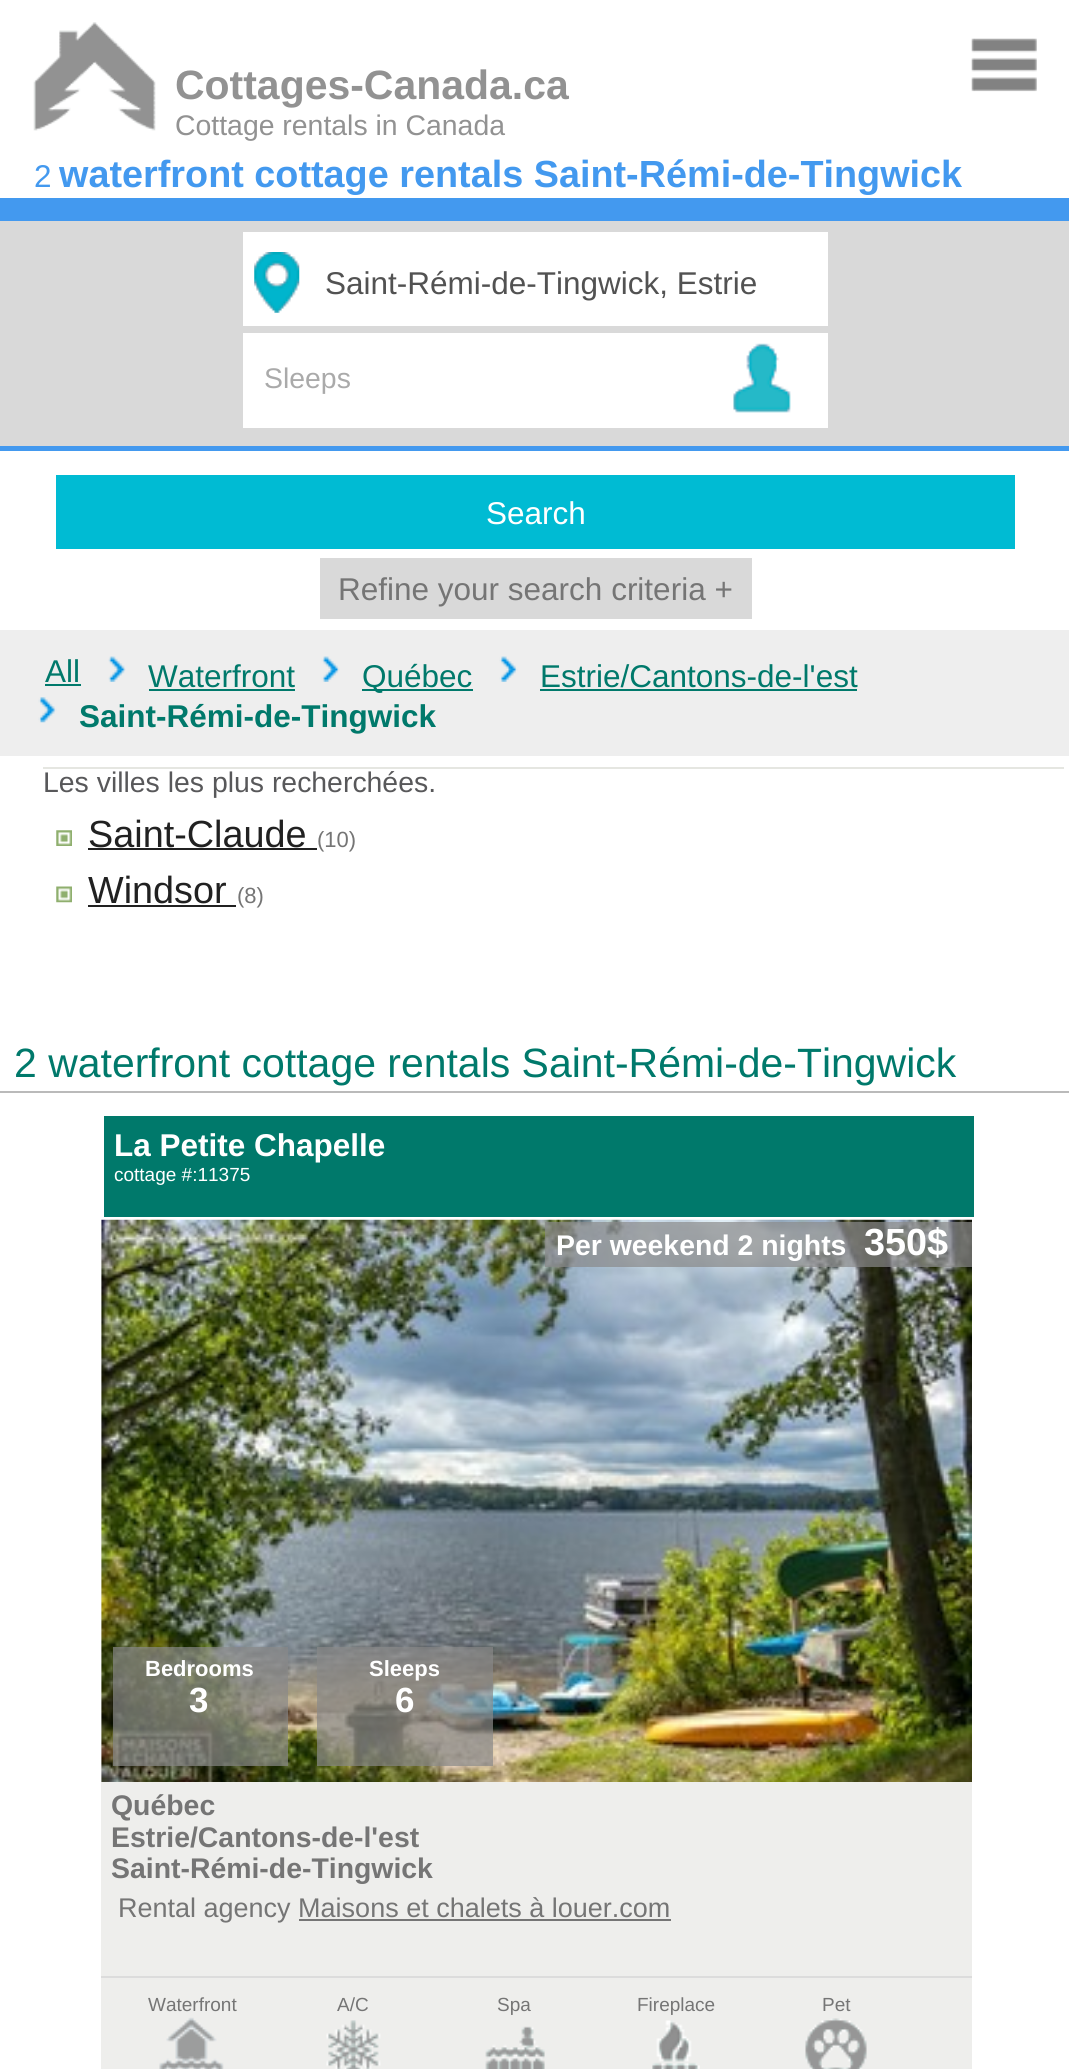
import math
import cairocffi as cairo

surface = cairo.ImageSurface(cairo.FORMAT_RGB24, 1069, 2069)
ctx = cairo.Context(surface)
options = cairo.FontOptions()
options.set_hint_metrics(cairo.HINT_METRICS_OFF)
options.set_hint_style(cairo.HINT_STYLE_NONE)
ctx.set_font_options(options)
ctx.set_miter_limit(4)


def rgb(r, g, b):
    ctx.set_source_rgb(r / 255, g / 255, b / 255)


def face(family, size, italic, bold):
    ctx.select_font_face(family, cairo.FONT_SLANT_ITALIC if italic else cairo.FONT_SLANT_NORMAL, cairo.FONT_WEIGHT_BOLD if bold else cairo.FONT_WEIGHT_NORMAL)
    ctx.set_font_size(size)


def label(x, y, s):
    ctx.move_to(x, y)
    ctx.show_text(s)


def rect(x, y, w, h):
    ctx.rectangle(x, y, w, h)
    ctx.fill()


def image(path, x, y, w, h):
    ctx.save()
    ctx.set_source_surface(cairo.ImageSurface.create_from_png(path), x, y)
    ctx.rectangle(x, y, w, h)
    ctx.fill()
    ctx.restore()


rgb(255, 255, 255)
ctx.paint()
image('image0.png', 33, 22, 123, 109)
face('Liberation Sans', 40.95, 0, 1)
rgb(146, 146, 146)
label(175, 99, 'Cottages-Canada.ca')
face('Liberation Sans', 28.4, 0, 0)
label(175, 135, 'Cottage rentals in Canada')
image('image1.png', 971, 38, 66, 54)
face('Liberation Sans', 31.5, 0, 0)
rgb(67, 153, 239)
label(34, 187, '2')
face('Liberation Sans', 37.8, 0, 1)
label(59, 187, 'waterfront cottage rentals Saint-Rémi-de-Tingwick')
rgb(217, 217, 217)
rect(0, 221, 1069, 225)
rgb(67, 153, 239)
rect(0, 198, 1069, 23)
rect(0, 446, 1069, 5)
rgb(255, 255, 255)
rect(243, 232, 585, 94)
image('image2.png', 254, 252, 46, 61)
face('Liberation Sans', 31.5, 0, 0)
rgb(82, 82, 82)
label(325, 294, 'Saint-Rémi-de-Tingwick, Estrie')
rgb(255, 255, 255)
rect(243, 333, 585, 95)
face('Liberation Sans', 28.4, 0, 0)
rgb(170, 170, 170)
label(264, 388, 'Sleeps')
image('image3.png', 733, 343, 58, 70)
rgb(0, 187, 211)
rect(56, 475, 959, 74)
face('Liberation Sans', 31.5, 0, 0)
rgb(255, 255, 255)
label(486, 524, 'Search')
rgb(217, 217, 217)
rect(320, 558, 432, 61)
rgb(117, 117, 117)
label(338, 600, 'Refine your search criteria +')
rgb(238, 238, 238)
rect(0, 630, 1069, 126)
rgb(0, 121, 107)
label(45, 682, 'All')
rect(45, 684, 36, 2)
image('image4.png', 108, 656, 18, 26)
label(148, 687, 'Waterfront')
rect(149, 689, 146, 2)
image('image5.png', 321, 656, 19, 26)
rect(362, 689, 111, 2)
label(362, 687, 'Québec')
image('image6.png', 499, 656, 19, 26)
label(540, 687, 'Estrie/Cantons-de-l\'est')
rect(540, 689, 317, 2)
image('image7.png', 38, 697, 19, 26)
face('Liberation Sans', 31.5, 0, 1)
label(79, 727, 'Saint-Rémi-de-Tingwick')
rgb(229, 230, 225)
rect(43, 767, 1021, 2)
face('Liberation Sans', 28.4, 0, 0)
rgb(88, 88, 90)
label(43, 792, 'Les villes les plus recherchées.')
image('image8.png', 56, 830, 16, 16)
face('Liberation Sans', 37.8, 0, 0)
rgb(33, 33, 33)
label(88, 847, 'Saint-Claude')
rect(88, 848, 229, 2)
face('Liberation Sans', 22, 0, 0)
rgb(117, 117, 117)
label(317, 847, '(10)')
image('image9.png', 56, 886, 16, 17)
face('Liberation Sans', 37.8, 0, 0)
rgb(33, 33, 33)
label(88, 903, 'Windsor')
rect(88, 905, 148, 2)
face('Liberation Sans', 22, 0, 0)
rgb(117, 117, 117)
label(237, 903, '(8)')
face('Liberation Sans', 40.95, 0, 0)
rgb(0, 121, 107)
label(14, 1077, '2 waterfront cottage rentals Saint-Rémi-de-Tingwick')
rgb(186, 186, 186)
rect(0, 1091, 1069, 2)
rgb(0, 121, 107)
rect(104, 1116, 870, 101)
face('Liberation Sans', 31.5, 0, 1)
rgb(255, 255, 255)
label(114, 1156, 'La Petite Chapelle')
face('Liberation Sans', 19, 0, 0)
label(114, 1181, 'cottage #:11375')
rgb(238, 238, 236)
rect(101, 1220, 1, 562)
image('image10.png', 101, 1219, 871, 563)
ctx.set_source_rgba(0.541, 0.541, 0.541, 0.7)
rect(545, 1222, 427, 45)
face('Liberation Sans', 28.4, 0, 1)
rgb(255, 255, 255)
label(556, 1255, 'Per weekend 2 nights')
face('Liberation Sans', 37.8, 0, 1)
label(864, 1255, '350$')
ctx.set_source_rgba(0.541, 0.541, 0.541, 0.7)
rect(113, 1647, 175, 119)
face('Liberation Sans', 22, 0, 1)
rgb(255, 255, 255)
label(145, 1676, 'Bedrooms')
face('Liberation Sans', 35, 0, 1)
label(189, 1712, '3')
ctx.set_source_rgba(0.541, 0.541, 0.541, 0.7)
rect(317, 1647, 176, 119)
face('Liberation Sans', 22, 0, 1)
rgb(255, 255, 255)
label(369, 1676, 'Sleeps')
face('Liberation Sans', 35, 0, 1)
label(395, 1712, '6')
rgb(238, 238, 236)
rect(101, 1782, 871, 194)
rgb(220, 220, 220)
rect(101, 1976, 871, 2)
face('Liberation Sans', 28.4, 0, 1)
rgb(117, 117, 117)
label(111, 1815, 'Québec')
label(111, 1847, 'Estrie/Cantons-de-l\'est')
label(111, 1878, 'Saint-Rémi-de-Tingwick')
face('Liberation Sans', 27, 0, 0)
label(118, 1917, 'Rental agency Maisons et chalets à louer.com')
rect(299, 1919, 372, 2)
rgb(238, 238, 236)
rect(101, 1978, 871, 91)
face('Liberation Sans', 19, 0, 0)
rgb(117, 117, 117)
label(148, 2011, 'Waterfront')
image('image11.png', 159, 2017, 65, 52)
label(337, 2011, 'A/C')
image('image12.png', 326, 2020, 55, 49)
label(497, 2011, 'Spa')
image('image13.png', 485, 2026, 60, 43)
label(637, 2011, 'Fireplace')
image('image14.png', 652, 2020, 48, 49)
label(822, 2011, 'Pet')
image('image15.png', 805, 2018, 62, 51)
surface.write_to_png('render.png')
